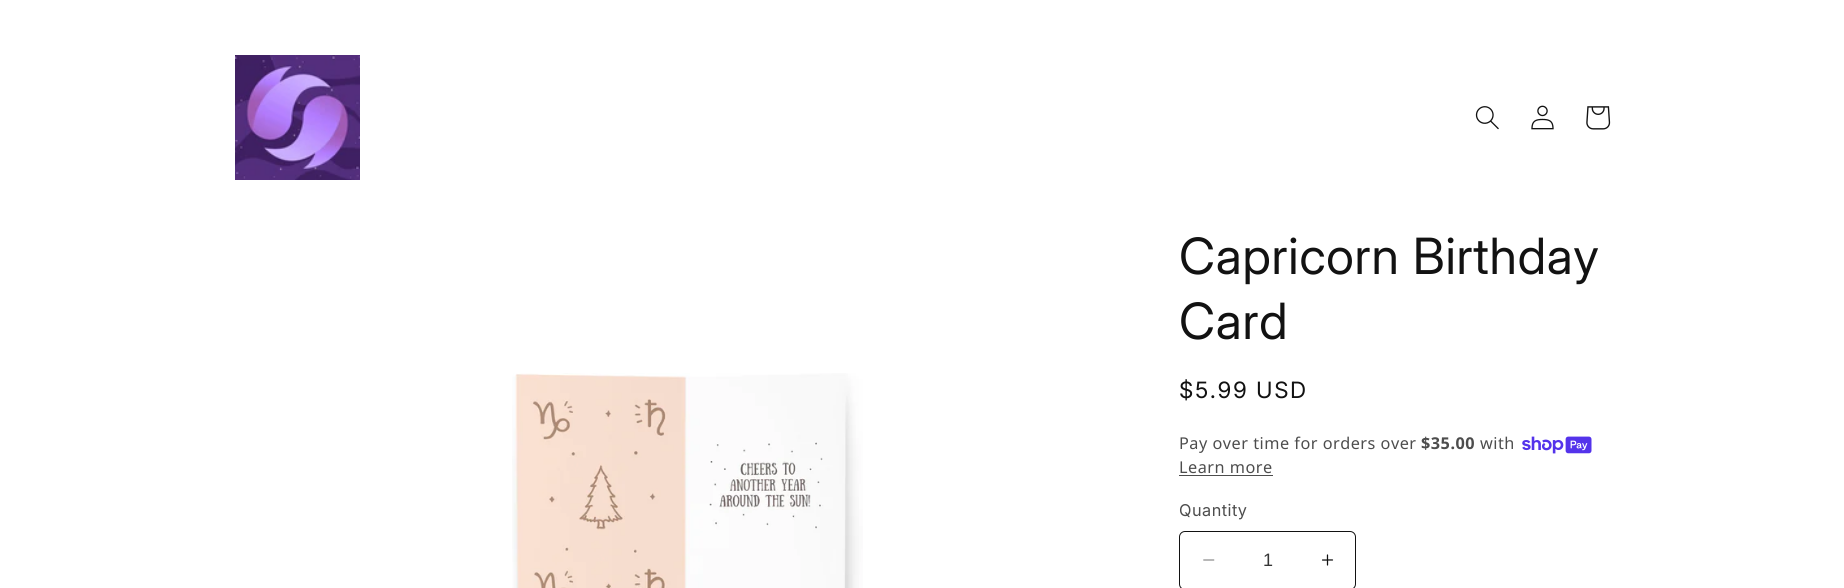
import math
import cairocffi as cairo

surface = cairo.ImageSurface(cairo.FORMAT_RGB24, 1844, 588)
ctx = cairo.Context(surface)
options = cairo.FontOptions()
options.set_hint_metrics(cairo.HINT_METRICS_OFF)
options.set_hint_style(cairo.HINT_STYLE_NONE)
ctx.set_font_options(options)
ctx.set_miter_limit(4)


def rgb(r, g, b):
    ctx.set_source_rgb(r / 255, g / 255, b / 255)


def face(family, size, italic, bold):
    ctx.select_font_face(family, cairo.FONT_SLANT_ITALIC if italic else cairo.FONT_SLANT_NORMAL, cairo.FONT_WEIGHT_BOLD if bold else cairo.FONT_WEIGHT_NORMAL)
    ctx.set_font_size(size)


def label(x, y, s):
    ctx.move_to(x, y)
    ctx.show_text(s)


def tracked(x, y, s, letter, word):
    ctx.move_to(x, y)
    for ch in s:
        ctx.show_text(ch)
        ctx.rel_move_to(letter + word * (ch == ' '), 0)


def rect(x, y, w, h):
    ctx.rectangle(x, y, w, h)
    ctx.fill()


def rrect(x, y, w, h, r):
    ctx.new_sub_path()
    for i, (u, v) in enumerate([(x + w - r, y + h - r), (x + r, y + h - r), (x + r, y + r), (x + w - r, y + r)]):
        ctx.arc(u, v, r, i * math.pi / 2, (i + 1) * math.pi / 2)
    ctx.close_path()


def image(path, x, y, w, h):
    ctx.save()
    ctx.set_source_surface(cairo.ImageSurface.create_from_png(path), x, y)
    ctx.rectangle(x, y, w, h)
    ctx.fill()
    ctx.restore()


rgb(255, 255, 255)
ctx.paint()
image('image0.png', 235, 55, 125, 125)
image('image1.png', 1475, 106, 24, 24)
image('image2.png', 1531, 105, 23, 25)
image('image3.png', 1586, 106, 25, 24)
image('image4.png', 512, 373, 351, 215)
face('Inter', 50, 0, 0)
rgb(18, 18, 18)
tracked(1179, 274, 'Capricorn Birthday', 0.75, 0)
tracked(1179, 339, 'Card', 0.75, 0)
face('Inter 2', 22.5, 0, 0)
tracked(1179, 398, '$5.99 USD', 1.6, 0)
face('Noto Sans', 16.25, 0, 0)
rgb(77, 77, 77)
tracked(1179, 449, 'Pay over time for orders over', 0.5, 0)
face('Noto Sans', 16.25, 0, 1)
tracked(1421, 449, '$35.00', 0.5, 0)
face('Noto Sans', 16.25, 0, 0)
tracked(1480, 449, 'with', 0.5, 0)
image('image5.png', 1522, 436, 70, 18)
tracked(1179, 473, 'Learn more', 0.5, 0)
rect(1179, 475, 94, 1)
face('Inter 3', 16.25, 0, 0)
tracked(1179, 516, 'Quantity', 0.5, 0)
image('image6.png', 1203, 559, 12, 2)
image('image7.png', 1322, 554, 12, 12)
rrect(1179.5, 531.5, 176, 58, 5.5)
rgb(18, 18, 18)
ctx.set_line_width(1)
ctx.stroke()
face('Liberation Sans', 18, 0, 0)
rgb(54, 54, 54)
label(1263, 566, '1')
surface.write_to_png('render.png')
